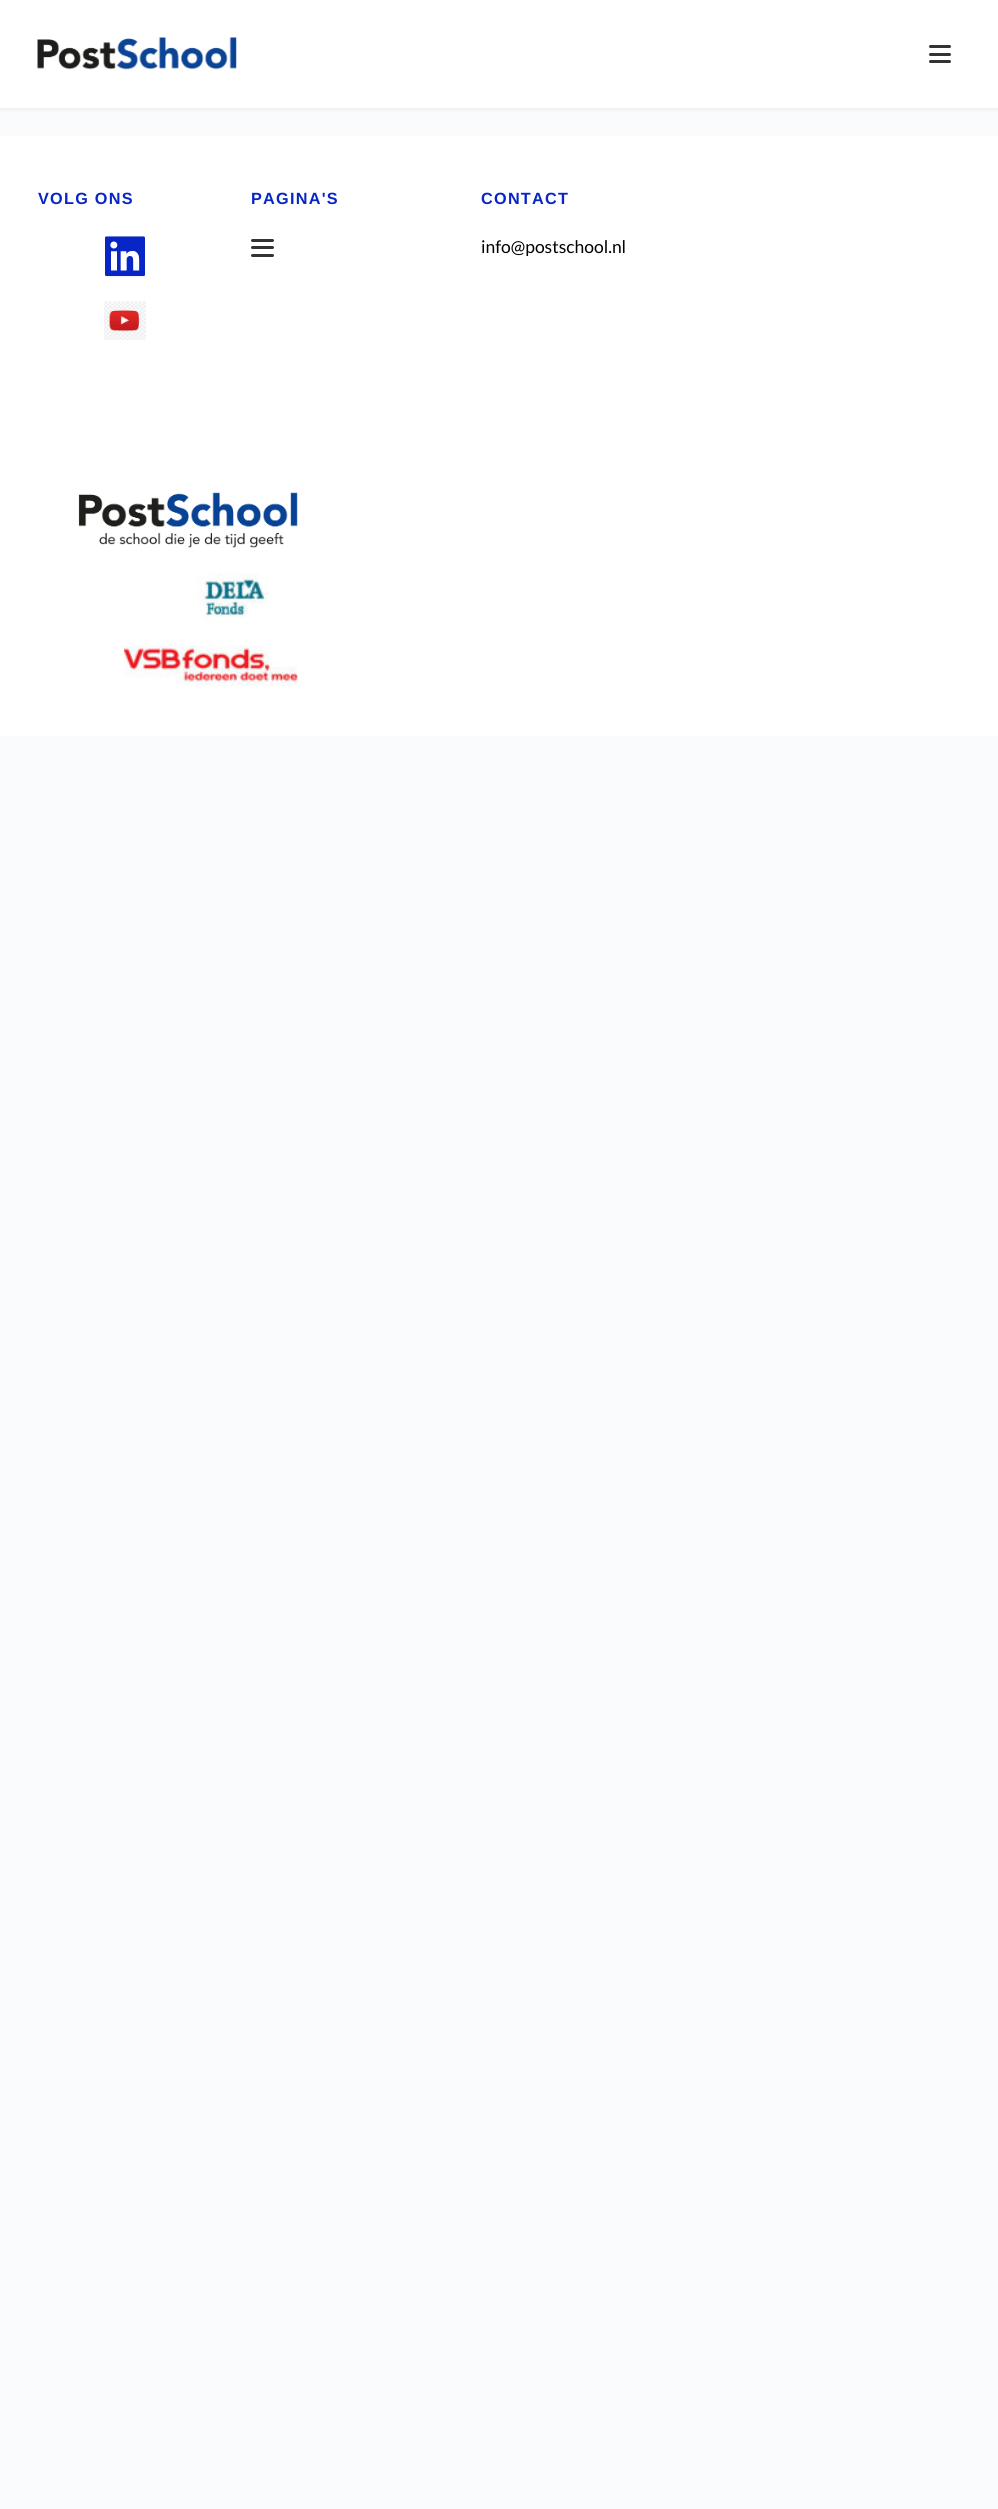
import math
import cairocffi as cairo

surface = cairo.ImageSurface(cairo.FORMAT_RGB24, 998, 2509)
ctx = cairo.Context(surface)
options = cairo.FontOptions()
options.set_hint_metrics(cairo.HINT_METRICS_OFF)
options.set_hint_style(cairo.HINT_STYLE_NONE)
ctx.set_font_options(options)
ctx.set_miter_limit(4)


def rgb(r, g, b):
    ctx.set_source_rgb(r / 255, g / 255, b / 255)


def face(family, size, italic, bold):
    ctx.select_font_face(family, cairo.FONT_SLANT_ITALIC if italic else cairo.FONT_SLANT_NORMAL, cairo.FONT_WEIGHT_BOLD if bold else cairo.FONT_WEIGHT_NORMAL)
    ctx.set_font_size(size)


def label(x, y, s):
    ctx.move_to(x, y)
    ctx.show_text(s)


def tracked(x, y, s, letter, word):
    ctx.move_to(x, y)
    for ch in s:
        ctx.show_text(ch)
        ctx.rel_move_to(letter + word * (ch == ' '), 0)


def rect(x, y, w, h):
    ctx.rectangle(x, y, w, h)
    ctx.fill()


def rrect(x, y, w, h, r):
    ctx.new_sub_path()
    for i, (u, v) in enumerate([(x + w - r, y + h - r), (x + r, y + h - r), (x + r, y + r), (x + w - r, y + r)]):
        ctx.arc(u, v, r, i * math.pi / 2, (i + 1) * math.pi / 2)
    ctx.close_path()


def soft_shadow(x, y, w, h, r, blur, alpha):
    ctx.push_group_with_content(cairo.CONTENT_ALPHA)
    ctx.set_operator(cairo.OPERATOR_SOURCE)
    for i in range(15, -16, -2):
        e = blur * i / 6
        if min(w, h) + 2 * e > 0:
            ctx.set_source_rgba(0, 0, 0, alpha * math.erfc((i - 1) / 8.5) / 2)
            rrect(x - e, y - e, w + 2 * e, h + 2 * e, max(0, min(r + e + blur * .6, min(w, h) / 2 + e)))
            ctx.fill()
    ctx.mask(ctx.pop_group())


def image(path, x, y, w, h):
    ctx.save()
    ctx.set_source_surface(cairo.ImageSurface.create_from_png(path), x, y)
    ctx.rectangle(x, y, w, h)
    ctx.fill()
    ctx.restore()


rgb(250, 251, 252)
ctx.paint()
rgb(0, 0, 0)
soft_shadow(0, 0, 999, 108, 0, 3, 0.1)
rgb(255, 255, 255)
rect(0, 0, 998, 108)
image('image0.png', 37, 37, 200, 33)
rgb(51, 51, 51)
rrect(929, 45, 22, 3, 1.5)
ctx.fill()
rrect(929, 53, 22, 3, 1.5)
ctx.fill()
rrect(929, 60, 22, 3, 1.5)
ctx.fill()
rgb(255, 255, 255)
rect(0, 136, 998, 600)
face('Liberation Sans', 16.25, 0, 1)
rgb(8, 38, 198)
tracked(38, 204, 'VOLG ONS', 1.25, 0)
image('image1.png', 105, 236, 40, 41)
image('image2.png', 104, 301, 42, 39)
tracked(251, 204, 'PAGINA\'S', 1.25, 0)
rgb(51, 51, 51)
rrect(251, 239, 23, 3, 1.5)
ctx.fill()
rrect(251, 246, 23, 3, 1.5)
ctx.fill()
rrect(251, 254, 23, 3, 1.5)
ctx.fill()
rgb(8, 38, 198)
tracked(481, 204, 'CONTACT', 1.25, 0)
face('Lato', 17.5, 0, 0)
rgb(0, 0, 0)
label(481, 253, 'info@postschool.nl')
image('image3.png', 78, 492, 220, 56)
image('image4.png', 123, 573, 175, 113)
surface.write_to_png('render.png')
